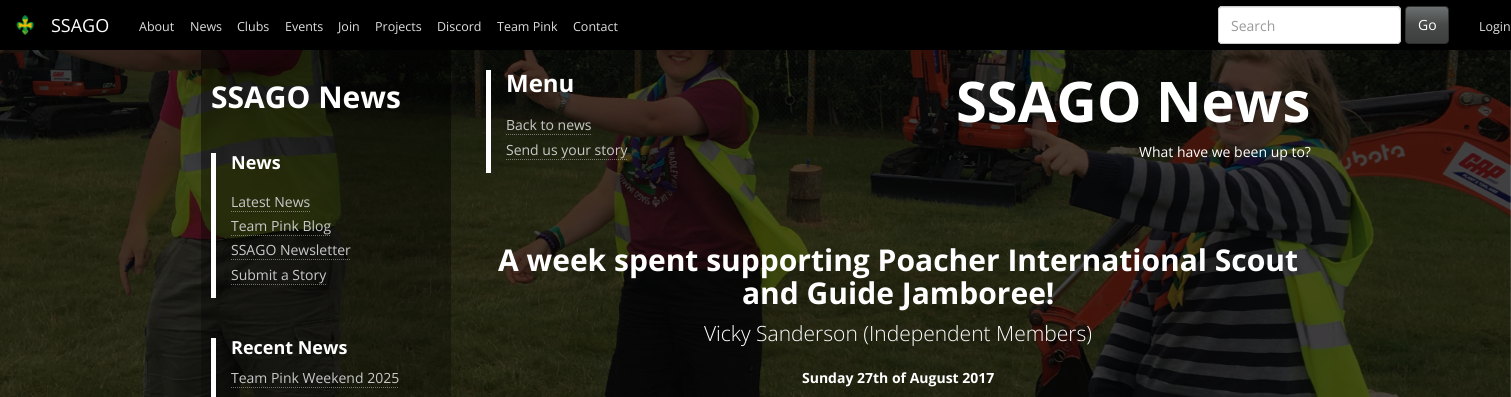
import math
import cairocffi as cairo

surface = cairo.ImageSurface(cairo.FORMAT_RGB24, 1511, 397)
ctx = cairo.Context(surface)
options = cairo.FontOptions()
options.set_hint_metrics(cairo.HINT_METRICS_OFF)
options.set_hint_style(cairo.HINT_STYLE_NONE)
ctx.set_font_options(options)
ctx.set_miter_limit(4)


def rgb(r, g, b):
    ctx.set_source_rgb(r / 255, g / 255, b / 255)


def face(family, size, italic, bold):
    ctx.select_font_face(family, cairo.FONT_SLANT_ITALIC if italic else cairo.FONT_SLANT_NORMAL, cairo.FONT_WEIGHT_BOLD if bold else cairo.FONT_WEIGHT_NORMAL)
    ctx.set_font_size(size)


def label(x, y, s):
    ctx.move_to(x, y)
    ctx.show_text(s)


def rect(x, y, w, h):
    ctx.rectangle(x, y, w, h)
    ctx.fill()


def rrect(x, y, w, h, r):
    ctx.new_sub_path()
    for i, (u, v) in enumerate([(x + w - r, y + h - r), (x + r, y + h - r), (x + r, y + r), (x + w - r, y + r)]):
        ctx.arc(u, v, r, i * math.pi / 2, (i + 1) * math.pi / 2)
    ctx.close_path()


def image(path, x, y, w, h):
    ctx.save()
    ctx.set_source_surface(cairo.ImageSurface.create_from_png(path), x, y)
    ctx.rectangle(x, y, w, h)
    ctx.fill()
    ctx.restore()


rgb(255, 255, 255)
ctx.paint()
rgb(0, 0, 0)
rect(0, 0, 1511, 50)
image('image0.png', 16, 15, 19, 20)
face('Open Sans', 18, 0, 0)
rgb(255, 255, 255)
label(51, 32, 'SSAGO')
face('Open Sans', 12.5, 0, 0)
rgb(221, 221, 221)
label(139, 31, 'About')
label(190, 31, 'News')
label(237, 31, 'Clubs')
label(285, 31, 'Events')
label(338, 31, 'Join')
label(375, 31, 'Projects')
label(437, 31, 'Discord')
label(497, 31, 'Team Pink')
label(573, 31, 'Contact')
rgb(255, 255, 255)
rrect(1218, 6, 183, 38, 4)
ctx.fill()
rgb(236, 236, 236)
ctx.new_path()
ctx.move_to(1222, 8)
ctx.line_to(1398, 8)
ctx.line_to(1399, 9)
ctx.line_to(1400, 11)
ctx.line_to(1400, 10)
ctx.curve_to(1400, 8, 1399, 7, 1397, 7)
ctx.line_to(1222, 7)
ctx.curve_to(1220, 7, 1219, 8, 1219, 10)
ctx.line_to(1219, 11)
ctx.curve_to(1219, 9, 1220, 8, 1222, 8)
ctx.close_path()
ctx.fill()
rrect(1218.5, 6.5, 182, 37, 3.5)
rgb(204, 204, 204)
ctx.set_line_width(1)
ctx.stroke()
face('Open Sans', 14, 0, 0)
rgb(153, 153, 153)
label(1231, 31, 'Search')
ctx.save()
rrect(1405, 6, 44, 38, 4)
ctx.clip()
gradient = cairo.LinearGradient(1427, 7, 1427, 43)
gradient.add_color_stop_rgba(0, 0.427, 0.439, 0.439, 1)
gradient.add_color_stop_rgba(0.5, 0.278, 0.286, 0.286, 1)
gradient.add_color_stop_rgba(1, 0.239, 0.247, 0.247, 1)
ctx.set_source(gradient)
rect(1406, 7, 42, 36)
ctx.restore()
rrect(1405.5, 6.5, 43, 37, 3.5)
rgb(46, 47, 47)
ctx.stroke()
rgb(255, 255, 255)
label(1418, 30, 'Go')
face('Open Sans', 12.5, 0, 0)
rgb(221, 221, 221)
label(1479, 31, 'Login')
image('image1.png', 0, 50, 1511, 347)
face('Open Sans', 30, 0, 1)
rgb(255, 255, 255)
label(211, 108, 'SSAGO News')
rect(211, 153, 5, 145)
face('Open Sans', 18, 0, 1)
label(231, 169, 'News')
face('Open Sans', 14, 0, 0)
rgb(200, 200, 200)
label(231, 207, 'Latest News')
ctx.new_path()
ctx.move_to(231, 211.5)
ctx.line_to(310, 211.5)
rgb(125, 128, 108)
ctx.set_dash([1, 1])
ctx.stroke()
rgb(200, 200, 200)
label(231, 231, 'Team Pink Blog')
ctx.new_path()
ctx.move_to(231, 235.5)
ctx.line_to(331, 235.5)
ctx.set_source_rgba(1, 1, 1, 0.4)
ctx.stroke()
rgb(200, 200, 200)
label(231, 255, 'SSAGO Newsletter')
ctx.new_path()
ctx.move_to(231, 259.5)
ctx.line_to(350, 259.5)
ctx.set_source_rgba(1, 1, 1, 0.4)
ctx.stroke()
rgb(200, 200, 200)
label(231, 280, 'Submit a Story')
ctx.new_path()
ctx.move_to(231, 284.5)
ctx.line_to(326, 284.5)
ctx.set_source_rgba(1, 1, 1, 0.4)
ctx.stroke()
rgb(255, 255, 255)
rect(211, 338, 5, 59)
face('Open Sans', 18, 0, 1)
label(231, 354, 'Recent News')
face('Open Sans', 14, 0, 0)
rgb(200, 200, 200)
label(231, 383, 'Team Pink Weekend 2025')
ctx.new_path()
ctx.move_to(231, 387.5)
ctx.line_to(399, 387.5)
ctx.set_source_rgba(1, 1, 1, 0.4)
ctx.stroke()
rgb(255, 255, 255)
rect(486, 70, 5, 103)
face('Open Sans', 24, 0, 1)
label(506, 92, 'Menu')
face('Open Sans', 14, 0, 0)
rgb(200, 200, 200)
label(506, 130, 'Back to news')
ctx.new_path()
ctx.move_to(506, 134.5)
ctx.line_to(591, 134.5)
ctx.set_source_rgba(1, 1, 1, 0.4)
ctx.stroke()
rgb(200, 200, 200)
label(506, 155, 'Send us your story')
ctx.new_path()
ctx.move_to(506, 159.5)
ctx.line_to(627, 159.5)
ctx.set_source_rgba(1, 1, 1, 0.4)
ctx.stroke()
face('Open Sans', 56, 0, 1)
rgb(255, 255, 255)
label(956, 122, 'SSAGO News')
face('Open Sans', 14, 0, 0)
label(1139, 157, 'What have we been up to?')
face('Open Sans', 30, 0, 1)
label(498, 271, 'A week spent supporting Poacher International Scout')
label(742, 304, 'and Guide Jamboree!')
face('Open Sans Light', 21, 0, 0)
label(704, 341, 'Vicky Sanderson (Independent Members)')
face('Open Sans', 14, 0, 1)
label(802, 383, 'Sunday 27th of August 2017')
surface.write_to_png('render.png')
